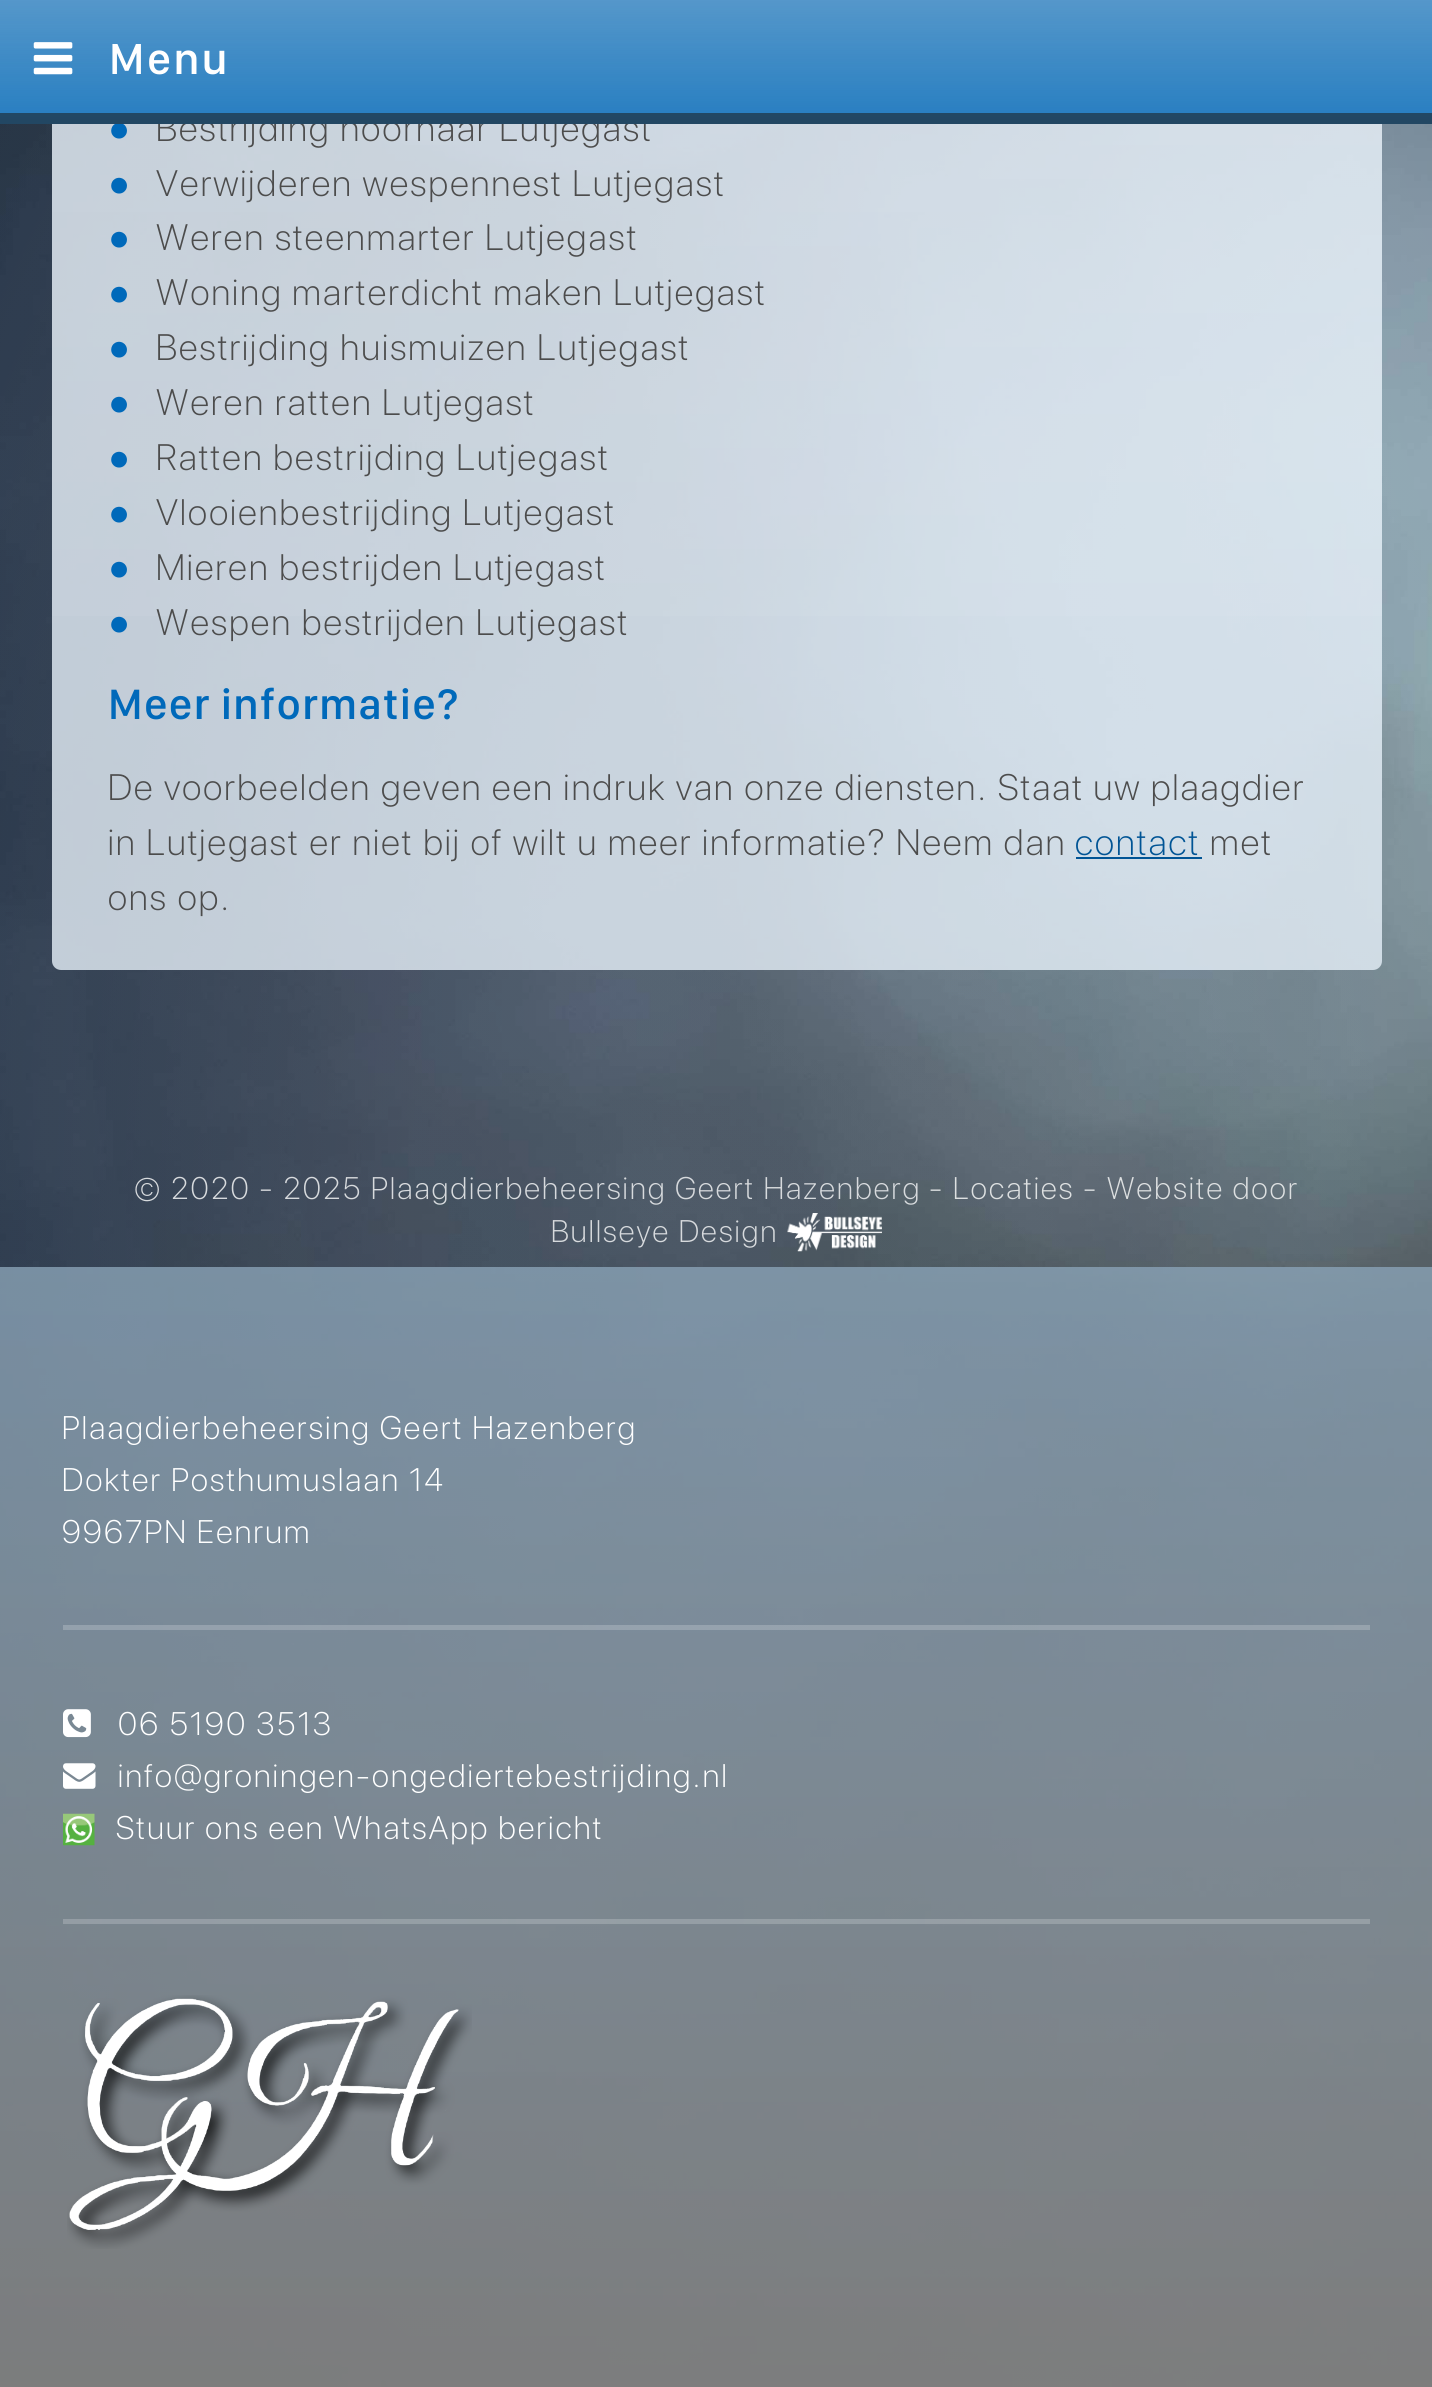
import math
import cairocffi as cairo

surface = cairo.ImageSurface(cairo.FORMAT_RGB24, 1432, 2387)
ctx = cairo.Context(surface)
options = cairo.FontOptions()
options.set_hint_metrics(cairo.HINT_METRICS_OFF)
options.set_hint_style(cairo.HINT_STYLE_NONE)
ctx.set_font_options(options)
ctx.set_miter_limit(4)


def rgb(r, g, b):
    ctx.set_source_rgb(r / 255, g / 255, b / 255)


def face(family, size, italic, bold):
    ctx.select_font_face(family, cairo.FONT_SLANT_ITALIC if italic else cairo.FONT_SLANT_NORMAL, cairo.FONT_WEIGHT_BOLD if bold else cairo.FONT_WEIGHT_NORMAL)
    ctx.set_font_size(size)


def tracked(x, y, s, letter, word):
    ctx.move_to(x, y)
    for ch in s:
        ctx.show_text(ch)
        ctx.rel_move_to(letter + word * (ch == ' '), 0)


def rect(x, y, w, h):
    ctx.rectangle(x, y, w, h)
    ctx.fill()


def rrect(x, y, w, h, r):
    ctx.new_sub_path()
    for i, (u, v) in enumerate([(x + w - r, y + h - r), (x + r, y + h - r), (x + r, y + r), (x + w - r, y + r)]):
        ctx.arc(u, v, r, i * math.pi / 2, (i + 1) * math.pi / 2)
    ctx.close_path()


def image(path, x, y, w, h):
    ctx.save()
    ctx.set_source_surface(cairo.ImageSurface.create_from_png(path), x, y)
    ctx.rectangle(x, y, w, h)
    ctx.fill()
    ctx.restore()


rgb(255, 255, 255)
ctx.paint()
image('image6.png', 0, 124, 1432, 2263)
ctx.set_source_rgba(0.902, 0.941, 0.973, 0.8)
rrect(52, -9, 1330, 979, 9)
ctx.fill()
gradient = cairo.LinearGradient(717, -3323, 717, 970)
gradient.add_color_stop_rgba(0, 1, 1, 1, 0.5)
gradient.add_color_stop_rgba(1, 1, 1, 1, 0)
ctx.set_source(gradient)
rect(52, 124, 1330, 492)
face('Liberation Serif', 36.65, 0, 0)
rgb(0, 105, 186)
tracked(108, 141, '●', 2.2, 0)
face('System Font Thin', 36.65, 0, 0)
rgb(76, 76, 76)
tracked(156, 141, 'Bestrijding hoornaar Lutjegast', 2.2, 0)
gradient = cairo.LinearGradient(717, 0, 717, 124)
gradient.add_color_stop_rgba(0, 0.153, 0.318, 0.443, 1)
gradient.add_color_stop_rgba(1, 0.133, 0.278, 0.388, 1)
ctx.set_source(gradient)
rect(0, 0, 1432, 124)
ctx.set_source_rgba(1, 1, 1, 0.8)
rect(0, 0, 1432, 113)
gradient = cairo.LinearGradient(717, 0, 717, 113)
gradient.add_color_stop_rgba(0, 0, 0.412, 0.729, 0.6)
gradient.add_color_stop_rgba(1, 0, 0.412, 0.729, 0.8)
ctx.set_source(gradient)
rect(0, 0, 1432, 113)
image('image0.png', 33, 42, 40, 33)
face('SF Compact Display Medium', 45, 0, 0)
rgb(255, 255, 255)
tracked(109, 74, 'Menu', 2.5, 0)
face('Liberation Serif', 36.65, 0, 0)
rgb(0, 105, 186)
tracked(108, 196, '●', 2.2, 0)
face('System Font Thin', 36.65, 0, 0)
rgb(76, 76, 76)
tracked(156, 196, 'Verwijderen wespennest Lutjegast', 2.2, 0)
face('Liberation Serif', 36.65, 0, 0)
rgb(0, 105, 186)
tracked(108, 250, '●', 2.2, 0)
face('System Font Thin', 36.65, 0, 0)
rgb(76, 76, 76)
tracked(156, 250, 'Weren steenmarter Lutjegast', 2.2, 0)
face('Liberation Serif', 36.65, 0, 0)
rgb(0, 105, 186)
tracked(108, 305, '●', 2.2, 0)
face('System Font Thin', 36.65, 0, 0)
rgb(76, 76, 76)
tracked(156, 305, 'Woning marterdicht maken Lutjegast', 2.2, 0)
face('Liberation Serif', 36.65, 0, 0)
rgb(0, 105, 186)
tracked(108, 360, '●', 2.2, 0)
face('System Font Thin', 36.65, 0, 0)
rgb(76, 76, 76)
tracked(156, 360, 'Bestrijding huismuizen Lutjegast', 2.2, 0)
face('Liberation Serif', 36.65, 0, 0)
rgb(0, 105, 186)
tracked(108, 415, '●', 2.2, 0)
face('System Font Thin', 36.65, 0, 0)
rgb(76, 76, 76)
tracked(156, 415, 'Weren ratten Lutjegast', 2.2, 0)
face('Liberation Serif', 36.65, 0, 0)
rgb(0, 105, 186)
tracked(108, 470, '●', 2.2, 0)
face('System Font Thin', 36.65, 0, 0)
rgb(76, 76, 76)
tracked(156, 470, 'Ratten bestrijding Lutjegast', 2.2, 0)
face('Liberation Serif', 36.65, 0, 0)
rgb(0, 105, 186)
tracked(108, 525, '●', 2.2, 0)
face('System Font Thin', 36.65, 0, 0)
rgb(76, 76, 76)
tracked(156, 525, 'Vlooienbestrijding Lutjegast', 2.2, 0)
face('Liberation Serif', 36.65, 0, 0)
rgb(0, 105, 186)
tracked(108, 580, '●', 2.2, 0)
face('System Font Thin', 36.65, 0, 0)
rgb(76, 76, 76)
tracked(156, 580, 'Mieren bestrijden Lutjegast', 2.2, 0)
face('Liberation Serif', 36.65, 0, 0)
rgb(0, 105, 186)
tracked(108, 635, '●', 2.2, 0)
face('System Font Thin', 36.65, 0, 0)
rgb(76, 76, 76)
tracked(156, 635, 'Wespen bestrijden Lutjegast', 2.2, 0)
face('SF Compact Display Medium', 44, 0, 0)
rgb(0, 105, 186)
tracked(108, 719, 'Meer informatie?', 1.3, 0)
face('System Font Thin', 36.65, 0, 0)
rgb(76, 76, 76)
tracked(108, 800, 'De voorbeelden geven een indruk van onze diensten. Staat uw plaagdier', 2.2, -0.1)
tracked(108, 855, 'in Lutjegast er niet bij of wilt u meer informatie? Neem dan', 2.2, 0)
rgb(0, 84, 149)
tracked(1075, 855, 'contact', 2.2, 0)
rect(1076, 857, 126, 2)
rgb(76, 76, 76)
tracked(1210, 855, 'met', 2.2, 0)
tracked(108, 910, 'ons op.', 2.2, 0)
face('System Font Thin', 31.1, 0, 0)
rgb(215, 218, 221)
tracked(134, 1199, '©', 2.2, 0)
tracked(171, 1199, '2020 - 2025', 2.2, 0)
tracked(371, 1199, 'Plaagdierbeheersing Geert Hazenberg', 2.2, 0)
rgb(221, 224, 225)
tracked(929, 1199, '-', 2.2, 0)
tracked(953, 1199, 'Locaties', 2.2, 0)
tracked(1083, 1199, '-', 2.2, 0)
tracked(1107, 1199, 'Website door', 2.2, 0)
rgb(215, 218, 221)
tracked(551, 1242, 'Bullseye Design', 2.2, 0)
image('image1.png', 787, 1213, 95, 39)
ctx.set_source_rgba(1, 1, 1, 0.2)
rect(63, 1625, 1307, 5)
face('System Font Thin', 32.5, 0, 0)
rgb(255, 255, 255)
tracked(62, 1439, 'Plaagdierbeheersing Geert Hazenberg', 2.3, 0)
tracked(62, 1491, 'Dokter Posthumuslaan 14', 2.3, 0)
tracked(62, 1543, '9967PN Eenrum', 2.3, 0)
ctx.set_source_rgba(1, 1, 1, 0.2)
rect(63, 1919, 1307, 5)
image('image2.png', 63, 1709, 28, 29)
rgb(255, 255, 255)
tracked(118, 1735, '06 5190 3513', 2.3, 0)
image('image3.png', 63, 1763, 33, 26)
tracked(118, 1787, 'info@groningen-ongediertebestrijding.nl', 2.3, 0)
image('image4.png', 63, 1813, 32, 33)
tracked(116, 1839, 'Stuur ons een WhatsApp bericht', 2.3, 0)
image('image5.png', 67, 1995, 405, 254)
surface.write_to_png('render.png')
